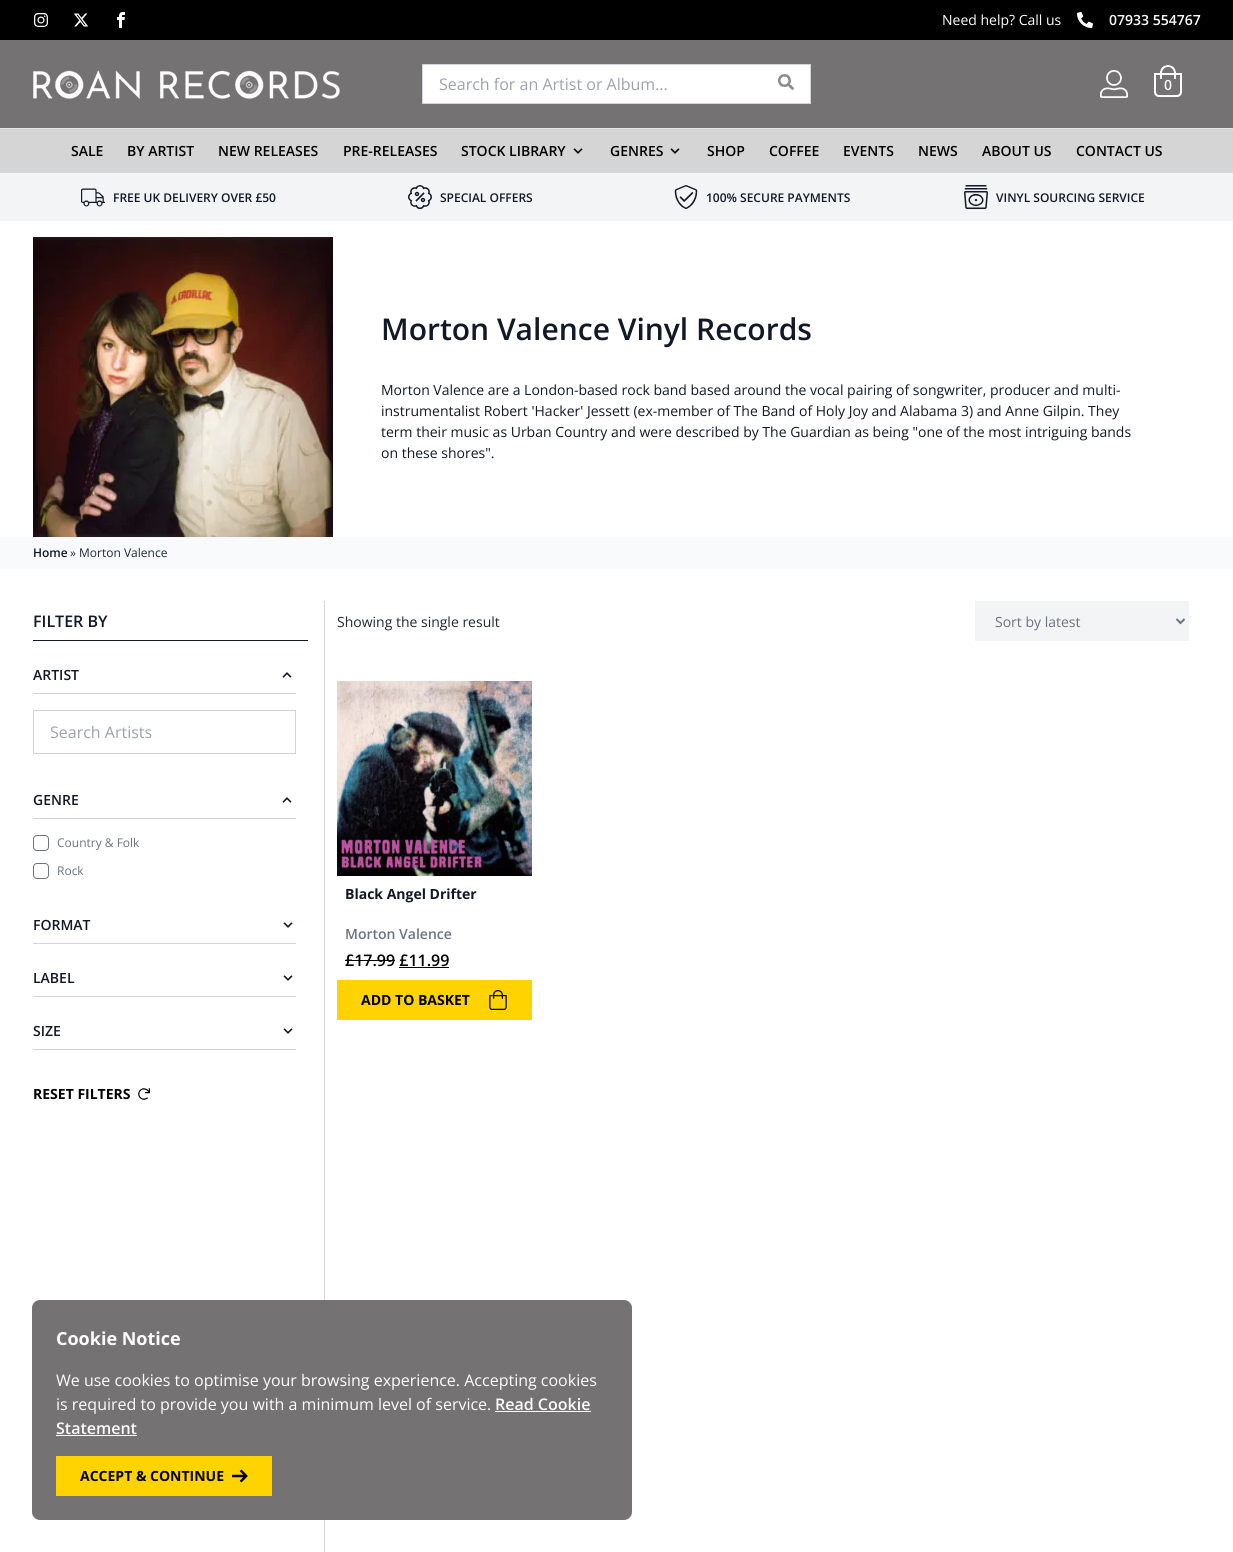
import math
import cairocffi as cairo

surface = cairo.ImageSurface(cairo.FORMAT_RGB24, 1233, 1552)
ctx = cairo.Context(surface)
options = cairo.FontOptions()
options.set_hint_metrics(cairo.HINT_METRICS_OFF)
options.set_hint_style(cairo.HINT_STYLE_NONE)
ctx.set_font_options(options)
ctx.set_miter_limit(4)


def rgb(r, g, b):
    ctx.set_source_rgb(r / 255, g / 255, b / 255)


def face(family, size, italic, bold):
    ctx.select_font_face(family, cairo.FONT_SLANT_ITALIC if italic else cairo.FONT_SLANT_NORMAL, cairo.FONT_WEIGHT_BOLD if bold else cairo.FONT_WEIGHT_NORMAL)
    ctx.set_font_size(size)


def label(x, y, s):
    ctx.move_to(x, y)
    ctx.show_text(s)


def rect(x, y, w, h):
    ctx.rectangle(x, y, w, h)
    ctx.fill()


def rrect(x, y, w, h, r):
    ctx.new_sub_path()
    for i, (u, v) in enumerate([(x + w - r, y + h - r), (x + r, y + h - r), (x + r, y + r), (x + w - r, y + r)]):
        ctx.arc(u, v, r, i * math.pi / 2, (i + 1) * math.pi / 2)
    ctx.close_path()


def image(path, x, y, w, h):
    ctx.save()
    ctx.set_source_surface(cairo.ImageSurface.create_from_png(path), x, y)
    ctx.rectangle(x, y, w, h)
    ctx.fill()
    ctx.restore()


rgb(255, 255, 255)
ctx.paint()
rgb(0, 0, 0)
rect(0, 0, 1233, 40)
image('image0.png', 34, 13, 14, 14)
image('image1.png', 74, 13, 14, 14)
image('image2.png', 117, 12, 8, 16)
face('Open Sans', 14, 0, 0)
rgb(255, 255, 255)
label(942, 25, 'Need help? Call us')
image('image3.png', 1077, 12, 16, 16)
face('Open Sans SemiBold', 14, 0, 0)
label(1109, 25, '07933 554767')
rgb(116, 114, 114)
rect(0, 40, 1233, 88)
image('image4.png', 33, 70, 307, 29)
rgb(255, 255, 255)
rect(423, 65, 387, 38)
rgb(209, 213, 219)
rect(422, 64, 389, 1)
rect(422, 103, 340, 1)
rect(422, 64, 1, 40)
face('Open Sans', 16, 0, 0)
rgb(156, 163, 175)
label(439, 90, 'Search for an Artist or Album...')
rgb(209, 213, 219)
rect(810, 64, 1, 40)
rect(762, 103, 49, 1)
image('image5.png', 778, 74, 16, 16)
image('image6.png', 1100, 70, 28, 28)
image('image7.png', 1154, 65, 28, 32)
face('Open Sans SemiBold', 14, 0, 0)
rgb(255, 255, 255)
label(1164, 90, '0')
rgb(213, 213, 213)
rect(0, 129, 1233, 44)
rgb(229, 231, 235)
rect(0, 128, 1233, 1)
rgb(0, 0, 0)
label(71, 156, 'SALE')
label(127, 156, 'BY ARTIST')
label(218, 156, 'NEW RELEASES')
label(343, 156, 'PRE-RELEASES')
label(461, 156, 'STOCK LIBRARY')
image('image8.png', 573, 148, 10, 6)
label(610, 156, 'GENRES')
image('image8.png', 670, 148, 10, 6)
label(707, 156, 'SHOP')
label(769, 156, 'COFFEE')
label(843, 156, 'EVENTS')
label(918, 156, 'NEWS')
label(982, 156, 'ABOUT US')
label(1076, 156, 'CONTACT US')
rgb(243, 244, 246)
rect(0, 173, 1233, 48)
image('image9.png', 81, 188, 24, 19)
face('Open Sans SemiBold', 12, 0, 0)
rgb(17, 24, 39)
label(113, 202, 'FREE UK DELIVERY OVER £50')
image('image10.png', 408, 185, 24, 24)
label(440, 202, 'SPECIAL OFFERS')
image('image11.png', 674, 185, 24, 24)
label(706, 202, '100% SECURE PAYMENTS')
image('image12.png', 964, 185, 24, 24)
label(996, 202, 'VINYL SOURCING SERVICE')
image('image13.png', 33, 237, 300, 300)
face('Open Sans SemiBold', 30, 0, 0)
label(381, 340, 'Morton Valence Vinyl Records')
face('Open Sans', 14, 0, 0)
label(381, 395, 'Morton Valence are a London-based rock band based around the vocal pairing of songwriter, producer and multi-')
label(381, 416, 'instrumentalist Robert \'Hacker\' Jessett (ex-member of The Band of Holy Joy and Alabama 3) and Anne Gilpin. They')
label(381, 437, 'term their music as Urban Country and were described by The Guardian as being "one of the most intriguing bands')
label(381, 458, 'on these shores".')
rgb(249, 250, 251)
rect(0, 537, 1233, 32)
face('Open Sans SemiBold', 12, 0, 0)
rgb(17, 24, 39)
label(33, 557, 'Home')
face('Open Sans', 12, 0, 0)
rgb(31, 41, 55)
label(70, 557, '» Morton Valence')
rgb(209, 213, 219)
rect(324, 601, 1, 951)
rgb(17, 24, 39)
rect(33, 640, 275, 1)
face('Open Sans SemiBold', 16, 0, 0)
label(33, 627, 'FILTER BY')
rgb(209, 213, 219)
rect(33, 693, 263, 1)
face('Open Sans SemiBold', 14, 0, 0)
rgb(17, 24, 39)
label(33, 680, 'ARTIST')
image('image14.png', 282, 672, 10, 6)
ctx.rectangle(33.5, 710.5, 262, 43)
rgb(209, 213, 219)
ctx.set_line_width(1)
ctx.stroke()
face('Open Sans', 16, 0, 0)
rgb(156, 163, 175)
label(50, 738, 'Search Artists')
rgb(209, 213, 219)
rect(33, 818, 263, 1)
face('Open Sans SemiBold', 14, 0, 0)
rgb(17, 24, 39)
label(33, 805, 'GENRE')
image('image14.png', 282, 797, 10, 6)
rrect(33.5, 835.5, 15, 15, 3.5)
rgb(107, 114, 128)
ctx.stroke()
face('Open Sans', 12, 0, 0)
label(57, 847, 'Country & Folk')
rrect(33.5, 863.5, 15, 15, 3.5)
ctx.stroke()
label(57, 875, 'Rock')
rgb(209, 213, 219)
rect(33, 943, 263, 1)
face('Open Sans SemiBold', 14, 0, 0)
rgb(17, 24, 39)
label(33, 930, 'FORMAT')
image('image15.png', 283, 922, 10, 6)
rgb(209, 213, 219)
rect(33, 996, 263, 1)
rgb(17, 24, 39)
label(33, 983, 'LABEL')
image('image15.png', 283, 975, 10, 6)
rgb(209, 213, 219)
rect(33, 1049, 263, 1)
rgb(17, 24, 39)
label(33, 1036, 'SIZE')
image('image15.png', 283, 1028, 10, 6)
face('Open Sans', 14, 0, 1)
rgb(0, 0, 0)
label(33, 1099, 'RESET FILTERS')
image('image16.png', 138, 1088, 12, 12)
face('Open Sans', 14, 0, 0)
rgb(31, 41, 55)
label(337, 627, 'Showing the single result')
rgb(243, 244, 246)
rect(975, 601, 214, 40)
ctx.new_path()
ctx.move_to(1176.5, 619)
ctx.line_to(1180.5, 623)
ctx.line_to(1184.5, 619)
rgb(107, 114, 128)
ctx.set_line_width(2)
ctx.stroke()
label(995, 627, 'Sort by latest')
image('image17.png', 337, 681, 195, 195)
face('Open Sans', 14, 0, 1)
rgb(17, 24, 39)
label(345, 899, 'Black Angel Drifter')
face('Open Sans SemiBold', 14, 0, 0)
rgb(107, 114, 128)
label(345, 939, 'Morton Valence')
face('Open Sans SemiBold', 16, 0, 0)
rgb(0, 0, 0)
label(345, 966, '£17.99 £11.99')
rect(345, 960, 50, 1)
rect(399, 967, 50, 1)
rgb(255, 211, 0)
rect(337, 980, 195, 40)
face('Open Sans', 14, 0, 1)
rgb(0, 0, 0)
label(361, 1005, 'ADD TO BASKET')
image('image18.png', 489, 990, 18, 20)
rgb(116, 114, 114)
rrect(32, 1300, 600, 220, 8)
ctx.fill()
face('Open Sans', 18, 0, 1)
rgb(255, 255, 255)
label(56, 1345, 'Cookie Notice')
face('Open Sans', 16, 0, 0)
label(56, 1386, 'We use cookies to optimise your browsing experience. Accepting cookies')
label(56, 1410, 'is required to provide you with a minimum level of service.')
face('Open Sans SemiBold', 16, 0, 0)
label(495, 1410, 'Read Cookie')
rect(495, 1411, 96, 1)
label(56, 1434, 'Statement')
rect(56, 1435, 81, 1)
rgb(255, 211, 0)
rect(56, 1456, 216, 40)
face('Open Sans', 14, 0, 1)
rgb(0, 0, 0)
label(80, 1481, 'ACCEPT & CONTINUE')
image('image19.png', 232, 1469, 16, 14)
surface.write_to_png('render.png')
